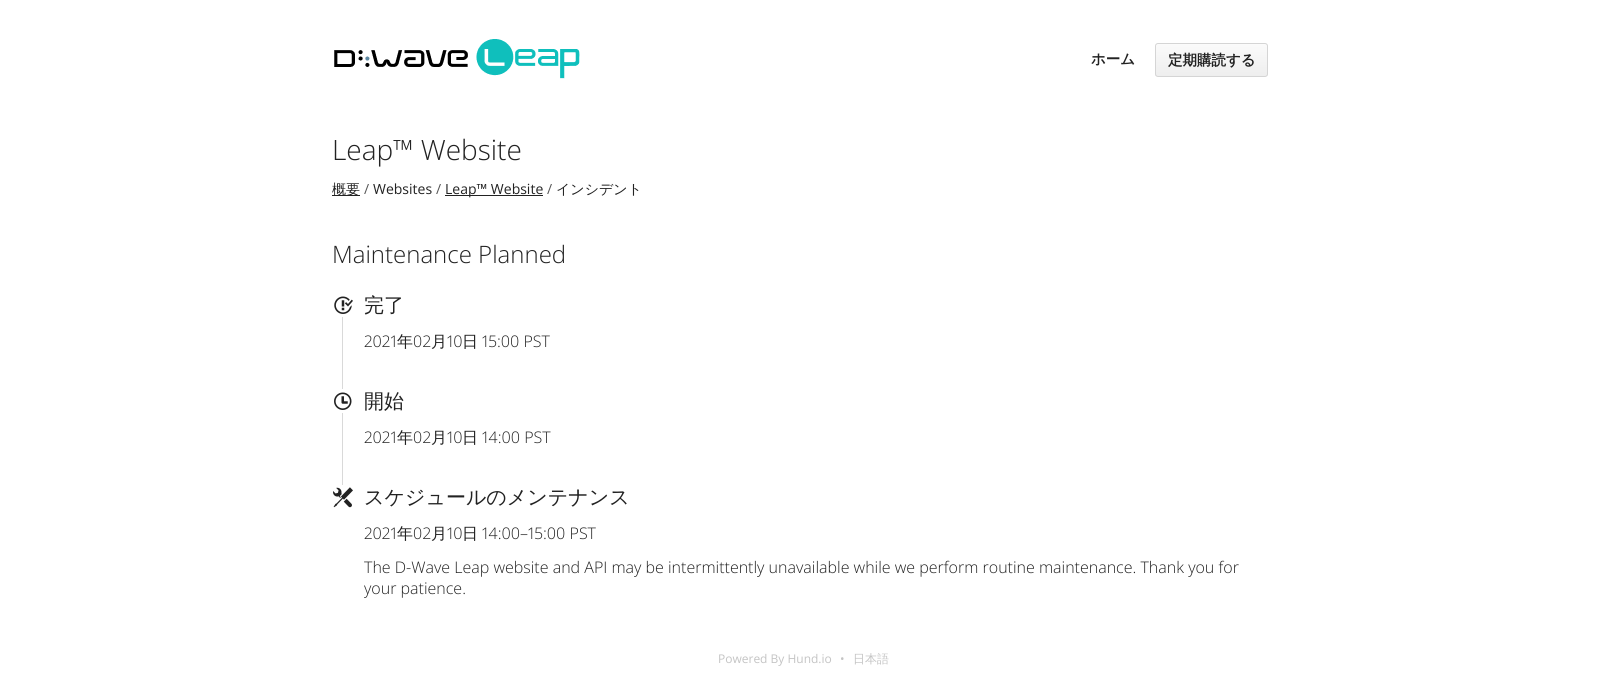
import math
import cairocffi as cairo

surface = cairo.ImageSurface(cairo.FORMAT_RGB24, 1600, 699)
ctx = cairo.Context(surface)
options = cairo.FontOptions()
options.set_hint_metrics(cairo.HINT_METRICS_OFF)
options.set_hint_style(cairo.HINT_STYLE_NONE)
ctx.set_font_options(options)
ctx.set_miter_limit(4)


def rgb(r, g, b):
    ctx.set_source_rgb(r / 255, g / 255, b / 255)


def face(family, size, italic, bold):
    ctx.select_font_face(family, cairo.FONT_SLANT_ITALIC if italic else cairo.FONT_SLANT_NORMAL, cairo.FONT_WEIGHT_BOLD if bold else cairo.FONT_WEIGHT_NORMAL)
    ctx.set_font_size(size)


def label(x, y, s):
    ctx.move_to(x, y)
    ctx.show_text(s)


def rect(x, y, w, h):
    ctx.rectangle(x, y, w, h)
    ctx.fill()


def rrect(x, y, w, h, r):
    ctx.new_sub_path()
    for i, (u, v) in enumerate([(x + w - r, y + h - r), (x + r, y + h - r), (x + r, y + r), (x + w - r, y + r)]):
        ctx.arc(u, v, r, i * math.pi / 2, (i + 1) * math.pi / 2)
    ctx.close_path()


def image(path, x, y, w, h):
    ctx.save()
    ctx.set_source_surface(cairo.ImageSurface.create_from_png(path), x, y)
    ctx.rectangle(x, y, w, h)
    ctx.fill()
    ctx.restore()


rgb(255, 255, 255)
ctx.paint()
image('image0.png', 334, 39, 246, 40)
face('WenQuanYi Zen Hei', 14.5, 0, 1)
rgb(34, 34, 34)
label(1091, 64, 'ホーム')
ctx.save()
rrect(1155, 43, 113, 34, 3)
ctx.clip()
gradient = cairo.LinearGradient(1212, 44, 1212, 76)
gradient.add_color_stop_rgba(0, 0.984, 0.984, 0.984, 1)
gradient.add_color_stop_rgba(1, 0.933, 0.933, 0.933, 1)
ctx.set_source(gradient)
rect(1155, 44, 113, 32)
ctx.restore()
rrect(1155.5, 43.5, 112, 33, 2.5)
rgb(213, 213, 213)
ctx.set_line_width(1)
ctx.stroke()
rgb(34, 34, 34)
label(1168, 65, '定期購読する')
face('Open Sans Light', 28, 0, 0)
label(332, 160, 'Leap™ Website')
rect(332, 195, 28, 1)
face('WenQuanYi Zen Hei Medium', 14, 0, 0)
label(332, 194, '概要')
face('Open Sans', 14, 0, 0)
rgb(86, 86, 86)
label(364, 194, '/')
rgb(34, 34, 34)
label(373, 194, 'Websites')
rgb(86, 86, 86)
label(436, 194, '/')
rgb(34, 34, 34)
rect(445, 195, 98, 1)
label(445, 194, 'Leap™ Website')
rgb(86, 86, 86)
label(547, 194, '/')
face('WenQuanYi Zen Hei Medium', 14, 0, 0)
rgb(34, 34, 34)
label(556, 194, 'インシデント')
face('Open Sans Light', 24, 0, 0)
label(332, 263, 'Maintenance Planned')
rgb(217, 217, 217)
rect(342, 317, 1, 168)
image('image1.png', 334, 296, 19, 18)
face('WenQuanYi Zen Hei Medium', 20, 0, 0)
rgb(34, 34, 34)
label(364, 312, '完了')
face('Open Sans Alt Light', 16, 0, 0)
label(364, 347, '2021')
face('WenQuanYi Zen Hei Medium', 16, 0, 0)
label(397, 347, '年')
face('Open Sans Light', 16, 0, 0)
label(413, 347, '02')
face('WenQuanYi Zen Hei Medium', 16, 0, 0)
label(431, 347, '月')
face('Open Sans Alt Light', 16, 0, 0)
label(447, 347, '10')
face('WenQuanYi Zen Hei Medium', 16, 0, 0)
label(462, 347, '日')
face('Open Sans Alt Light', 16, 0, 0)
label(482, 347, '15:00 PST')
rgb(255, 255, 255)
rect(342, 389, 1, 24)
image('image2.png', 334, 392, 18, 18)
face('WenQuanYi Zen Hei Medium', 20, 0, 0)
rgb(34, 34, 34)
label(364, 408, '開始')
face('Open Sans Alt Light', 16, 0, 0)
label(364, 443, '2021')
face('WenQuanYi Zen Hei Medium', 16, 0, 0)
label(397, 443, '年')
face('Open Sans Light', 16, 0, 0)
label(413, 443, '02')
face('WenQuanYi Zen Hei Medium', 16, 0, 0)
label(431, 443, '月')
face('Open Sans Alt Light', 16, 0, 0)
label(447, 443, '10')
face('WenQuanYi Zen Hei Medium', 16, 0, 0)
label(462, 443, '日')
face('Open Sans Alt Light', 16, 0, 0)
label(482, 443, '14:00 PST')
image('image3.png', 333, 487, 20, 21)
face('WenQuanYi Zen Hei Medium', 20, 0, 0)
label(364, 504, 'スケジュールのメンテナンス')
face('Open Sans Alt Light', 16, 0, 0)
label(364, 539, '2021')
face('WenQuanYi Zen Hei Medium', 16, 0, 0)
label(397, 539, '年')
face('Open Sans Light', 16, 0, 0)
label(413, 539, '02')
face('WenQuanYi Zen Hei Medium', 16, 0, 0)
label(431, 539, '月')
face('Open Sans Alt Light', 16, 0, 0)
label(447, 539, '10')
face('WenQuanYi Zen Hei Medium', 16, 0, 0)
label(462, 539, '日')
face('Open Sans Alt Light', 16, 0, 0)
label(482, 539, '14:00–15:00 PST')
face('Open Sans Light', 16, 0, 0)
label(364, 573, 'The D-Wave Leap website and API may be intermittently unavailable while we perform routine maintenance. Thank you for')
label(364, 594, 'your patience.')
face('Open Sans', 12, 0, 0)
rgb(196, 196, 196)
label(718, 663, 'Powered By Hund.io')
label(840, 663, '•')
face('WenQuanYi Zen Hei Medium', 12, 0, 0)
label(853, 663, '日本語')
surface.write_to_png('render.png')
